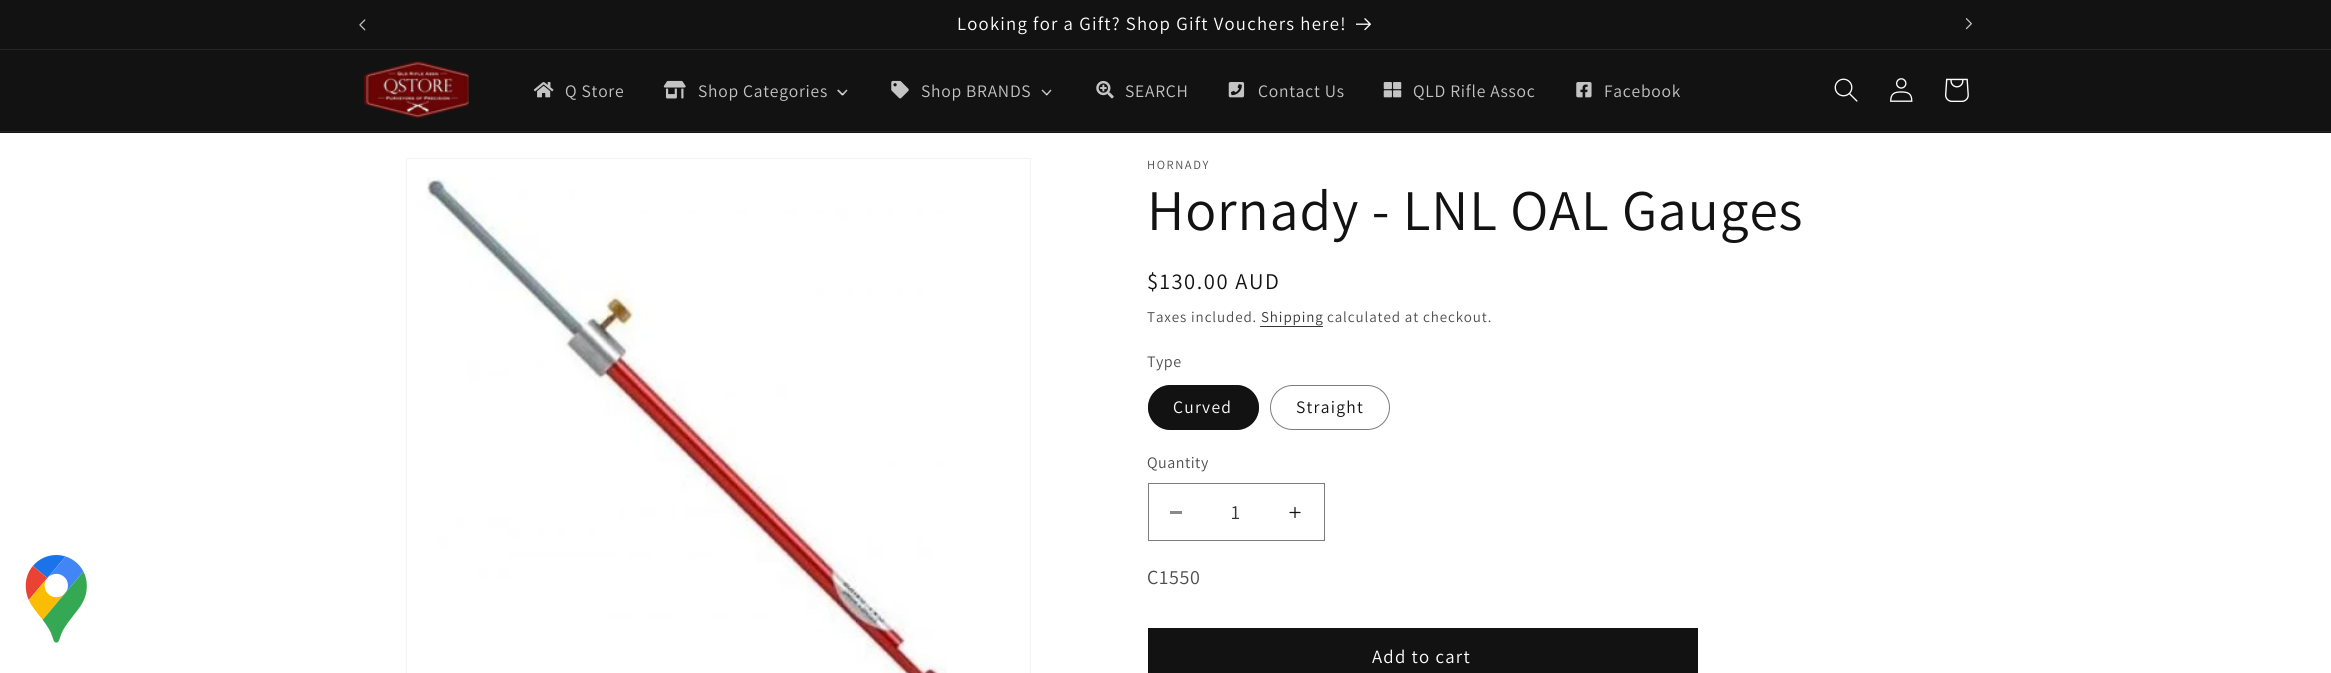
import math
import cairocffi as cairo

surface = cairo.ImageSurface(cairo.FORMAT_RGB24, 2331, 673)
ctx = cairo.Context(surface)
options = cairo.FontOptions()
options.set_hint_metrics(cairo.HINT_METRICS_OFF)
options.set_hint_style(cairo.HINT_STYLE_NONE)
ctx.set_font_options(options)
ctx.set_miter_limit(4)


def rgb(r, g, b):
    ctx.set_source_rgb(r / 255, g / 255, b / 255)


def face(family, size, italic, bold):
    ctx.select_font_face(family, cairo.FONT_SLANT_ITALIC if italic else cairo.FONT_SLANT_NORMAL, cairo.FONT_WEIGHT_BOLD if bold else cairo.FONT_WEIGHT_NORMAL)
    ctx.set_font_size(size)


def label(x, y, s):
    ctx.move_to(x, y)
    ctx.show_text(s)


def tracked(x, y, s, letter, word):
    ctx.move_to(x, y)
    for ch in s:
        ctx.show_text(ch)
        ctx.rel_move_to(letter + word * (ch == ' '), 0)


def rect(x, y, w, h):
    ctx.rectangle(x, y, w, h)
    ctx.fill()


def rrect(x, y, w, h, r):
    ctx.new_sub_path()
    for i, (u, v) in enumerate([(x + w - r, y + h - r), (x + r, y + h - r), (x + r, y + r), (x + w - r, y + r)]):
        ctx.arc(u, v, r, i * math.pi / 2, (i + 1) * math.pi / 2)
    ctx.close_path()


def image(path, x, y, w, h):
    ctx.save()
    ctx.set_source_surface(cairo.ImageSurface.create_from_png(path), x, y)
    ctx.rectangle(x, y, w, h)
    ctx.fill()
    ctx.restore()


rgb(255, 255, 255)
ctx.paint()
rgb(18, 18, 18)
rect(0, 0, 2331, 49)
rgb(37, 37, 37)
rect(0, 49, 2331, 1)
image('image0.png', 359, 19, 7, 12)
face('Assistant', 18.7, 0, 0)
rgb(255, 255, 255)
tracked(957, 30, 'Looking for a Gift? Shop Gift Vouchers here!', 1.25, 0)
image('image1.png', 1356, 18, 15, 13)
image('image2.png', 1965, 18, 7, 12)
rgb(18, 18, 18)
rect(0, 50, 2331, 83)
rgb(37, 37, 37)
rect(0, 131, 2331, 1)
image('image3.png', 363, 61, 106, 58)
image('image4.png', 533, 82, 21, 16)
face('Assistant', 17.5, 0, 0)
rgb(196, 196, 196)
tracked(565, 97, 'Q Store', 0.75, 0)
image('image5.png', 663, 80, 23, 19)
tracked(698, 97, 'Shop Categories', 0.75, 0)
ctx.new_path()
ctx.move_to(846.5, 89.5)
ctx.line_to(847.5, 90.5)
ctx.line_to(843, 95.5)
ctx.line_to(841.5, 94.5)
ctx.close_path()
ctx.fill()
ctx.set_source_rgba(1, 1, 1, 0.75)
ctx.new_path()
ctx.move_to(838.5, 89.5)
ctx.line_to(843.5, 94.5)
ctx.line_to(842, 95.5)
ctx.line_to(837, 90.5)
ctx.close_path()
ctx.fill()
image('image6.png', 891, 80, 18, 19)
rgb(196, 196, 196)
tracked(921, 97, 'Shop BRANDS', 0.75, 0)
ctx.new_path()
ctx.move_to(1050.5, 89.5)
ctx.line_to(1051.5, 90.5)
ctx.line_to(1047, 95.5)
ctx.line_to(1046, 94.5)
ctx.close_path()
ctx.fill()
ctx.set_source_rgba(1, 1, 1, 0.75)
ctx.new_path()
ctx.move_to(1042.5, 89.5)
ctx.line_to(1047.5, 94.5)
ctx.line_to(1046.5, 95.5)
ctx.line_to(1041.5, 90.5)
ctx.close_path()
ctx.fill()
image('image7.png', 1096, 80, 18, 19)
rgb(196, 196, 196)
tracked(1125, 97, 'SEARCH', 0.75, 0)
image('image8.png', 1228, 82, 17, 16)
tracked(1258, 97, 'Contact Us', 0.75, 0)
image('image9.png', 1383, 82, 19, 16)
tracked(1413, 97, 'QLD Rifle Assoc', 0.75, 0)
image('image10.png', 1576, 82, 16, 16)
tracked(1604, 97, 'Facebook', 0.75, 0)
image('image11.png', 1834, 78, 24, 24)
image('image12.png', 1890, 78, 23, 24)
image('image13.png', 1945, 78, 24, 24)
image('image14.png', 25, 555, 62, 88)
ctx.rectangle(406.5, 158.5, 624, 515)
rgb(243, 243, 243)
ctx.set_line_width(1)
ctx.stroke()
image('image15.png', 426, 177, 521, 496)
face('Assistant', 12.5, 0, 0)
rgb(77, 77, 77)
tracked(1147, 169, 'HORNADY', 1.6, 0)
face('Assistant', 57.5, 0, 0)
rgb(18, 18, 18)
tracked(1147, 230, 'Hornady - LNL OAL Gauges', 0.9, 0)
face('Assistant', 22.5, 0, 0)
tracked(1147, 289, '$130.00 AUD', 1.6, 0)
face('Assistant', 15, 0, 0)
rgb(77, 77, 77)
tracked(1147, 322, 'Taxes included.', 0.9, 0)
rgb(54, 54, 54)
tracked(1261, 322, 'Shipping', 0.9, 0)
rect(1260, 326, 63, 1)
rgb(77, 77, 77)
tracked(1327, 322, 'calculated at checkout.', 0.9, 0)
face('Assistant', 16, 0, 0)
tracked(1147, 367, 'Type', 0.5, 0)
rgb(18, 18, 18)
rrect(1148, 385, 111, 45, 22.5)
ctx.fill()
rrect(1148.5, 385.5, 110, 44, 22)
ctx.set_source_rgba(0.071, 0.071, 0.071, 0.55)
ctx.stroke()
face('Assistant', 17.5, 0, 0)
rgb(255, 255, 255)
tracked(1173, 413, 'Curved', 1.25, 0)
rrect(1270.5, 385.5, 119, 44, 22)
rgb(125, 125, 125)
ctx.stroke()
rgb(18, 18, 18)
tracked(1296, 413, 'Straight', 1.25, 0)
face('Assistant', 16, 0, 0)
rgb(77, 77, 77)
tracked(1147, 468, 'Quantity', 0.5, 0)
rgb(137, 137, 137)
rect(1170, 511, 12, 3)
image('image16.png', 1289, 506, 12, 13)
ctx.rectangle(1148.5, 483.5, 176, 57)
rgb(125, 125, 125)
ctx.stroke()
face('Assistant', 20, 0, 0)
rgb(54, 54, 54)
label(1231, 519, '1')
rgb(77, 77, 77)
tracked(1147, 584, 'C1550', 0.75, 0)
rgb(18, 18, 18)
rect(1148, 628, 550, 45)
face('Assistant', 18.75, 0, 0)
rgb(255, 255, 255)
tracked(1372, 663, 'Add to cart', 1.25, 0)
surface.write_to_png('render.png')
